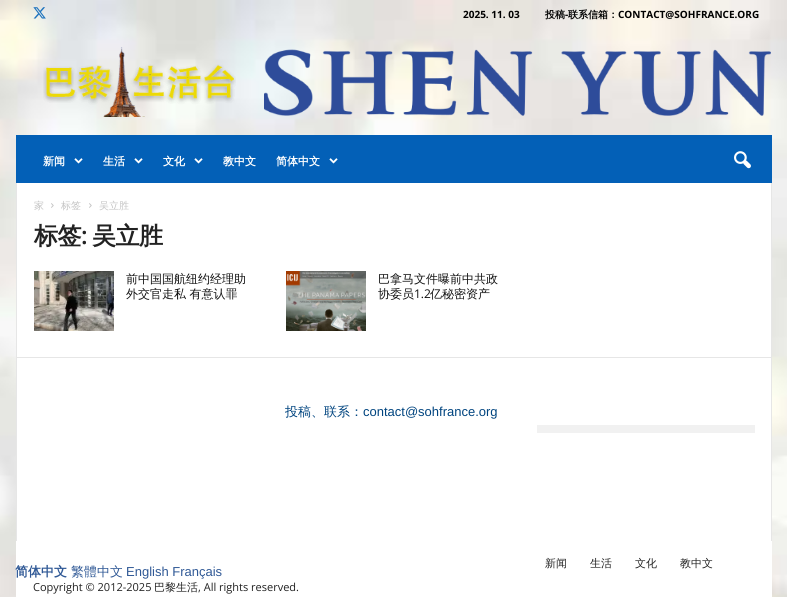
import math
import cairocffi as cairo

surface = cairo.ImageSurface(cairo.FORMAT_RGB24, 787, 597)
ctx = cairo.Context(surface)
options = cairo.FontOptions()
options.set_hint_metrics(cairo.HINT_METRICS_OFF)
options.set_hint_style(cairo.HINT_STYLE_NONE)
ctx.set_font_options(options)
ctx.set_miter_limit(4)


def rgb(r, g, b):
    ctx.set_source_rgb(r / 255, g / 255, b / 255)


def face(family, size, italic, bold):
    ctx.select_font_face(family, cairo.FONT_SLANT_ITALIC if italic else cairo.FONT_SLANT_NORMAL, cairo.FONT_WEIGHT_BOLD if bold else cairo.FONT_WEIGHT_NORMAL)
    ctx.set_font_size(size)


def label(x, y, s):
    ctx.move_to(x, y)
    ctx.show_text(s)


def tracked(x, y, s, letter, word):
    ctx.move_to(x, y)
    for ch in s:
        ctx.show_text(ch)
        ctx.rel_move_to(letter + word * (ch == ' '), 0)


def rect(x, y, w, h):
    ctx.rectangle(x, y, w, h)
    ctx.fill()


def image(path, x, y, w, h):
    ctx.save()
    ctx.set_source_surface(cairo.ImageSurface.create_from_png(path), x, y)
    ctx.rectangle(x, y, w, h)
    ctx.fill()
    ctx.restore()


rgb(255, 255, 255)
ctx.paint()
image('image0.png', 0, 0, 787, 597)
image('image1.png', 33, 7, 13, 12)
face('Open Sans', 10, 0, 1)
rgb(0, 0, 0)
label(463, 18, '2025. 11. 03')
face('WenQuanYi Zen Hei', 10, 0, 1)
label(545, 18, '投稿')
face('Open Sans', 10, 0, 1)
label(565, 18, '-')
face('WenQuanYi Zen Hei', 10, 0, 1)
label(568, 18, '联系信箱：')
face('Open Sans', 10, 0, 1)
label(618, 18, 'CONTACT@SOHFRANCE.ORG')
image('image2.png', 43, 47, 193, 70)
image('image3.png', 264, 49, 507, 67)
rgb(3, 96, 183)
rect(16, 139, 756, 44)
rgb(3, 95, 181)
rect(16, 135, 756, 4)
face('WenQuanYi Zen Hei', 11, 0, 1)
rgb(255, 255, 255)
label(43, 165, '新闻')
image('image4.png', 74, 158, 9, 6)
label(103, 165, '生活')
image('image4.png', 134, 158, 9, 6)
label(163, 165, '文化')
image('image4.png', 194, 158, 9, 6)
label(223, 165, '教中文')
label(276, 165, '简体中文')
image('image4.png', 329, 158, 9, 6)
image('image5.png', 734, 151, 17, 18)
rect(17, 183, 754, 174)
rgb(230, 230, 230)
rect(16, 357, 756, 1)
rect(16, 183, 1, 174)
face('WenQuanYi Zen Hei Medium', 10, 0, 0)
rgb(195, 195, 195)
label(34, 209, '家')
image('image6.png', 51, 203, 3, 5)
label(61, 209, '标签')
image('image6.png', 89, 203, 3, 5)
label(99, 209, '吴立胜')
face('WenQuanYi Zen Hei', 24, 0, 1)
rgb(34, 34, 34)
tracked(34, 244, '标签', -0.5, 0)
face('Open Sans SemiBold', 24, 0, 0)
tracked(81, 244, ':', -0.5, 0)
face('WenQuanYi Zen Hei', 24, 0, 1)
tracked(92, 244, '吴立胜', -0.5, 0)
image('image7.png', 34, 271, 80, 60)
face('WenQuanYi Zen Hei Medium', 12, 0, 0)
rgb(17, 17, 17)
label(126, 283, '前中国国航纽约经理助')
label(126, 298, '外交官走私 有意认罪')
image('image8.png', 286, 271, 80, 60)
label(378, 283, '巴拿马文件曝前中共政')
label(378, 298, '协委员')
face('Open Sans', 12, 0, 0)
label(414, 298, '1.2')
face('WenQuanYi Zen Hei Medium', 12, 0, 0)
label(430, 298, '亿秘密资产')
rgb(230, 230, 230)
rect(771, 183, 1, 174)
rgb(255, 255, 255)
rect(17, 358, 754, 183)
rgb(230, 230, 230)
rect(771, 358, 1, 183)
rect(16, 358, 1, 183)
face('WenQuanYi Zen Hei Medium', 13, 0, 0)
rgb(0, 68, 127)
label(285, 416, '投稿、联系：')
face('Liberation Sans', 13, 0, 0)
label(363, 416, 'contact@sohfrance.org')
rgb(241, 241, 241)
rect(537, 425, 218, 8)
rgb(255, 255, 255)
rect(16, 541, 756, 56)
face('WenQuanYi Zen Hei Medium', 11, 0, 0)
rgb(34, 34, 34)
label(545, 567, '新闻')
label(590, 567, '生活')
label(635, 567, '文化')
label(680, 567, '教中文')
face('Open Sans', 11, 0, 0)
label(33, 591, 'Copyright © 2012-2025')
face('WenQuanYi Zen Hei Medium', 11, 0, 0)
label(154, 591, '巴黎生活')
face('Open Sans', 11, 0, 0)
label(198, 591, ', All rights reserved.')
face('WenQuanYi Zen Hei', 13, 0, 1)
rgb(48, 89, 150)
label(15, 576, '简体中文')
face('WenQuanYi Zen Hei Medium', 13, 0, 0)
label(71, 576, '繁體中文')
face('Liberation Sans', 13, 0, 0)
label(126, 576, 'English Français')
surface.write_to_png('render.png')
